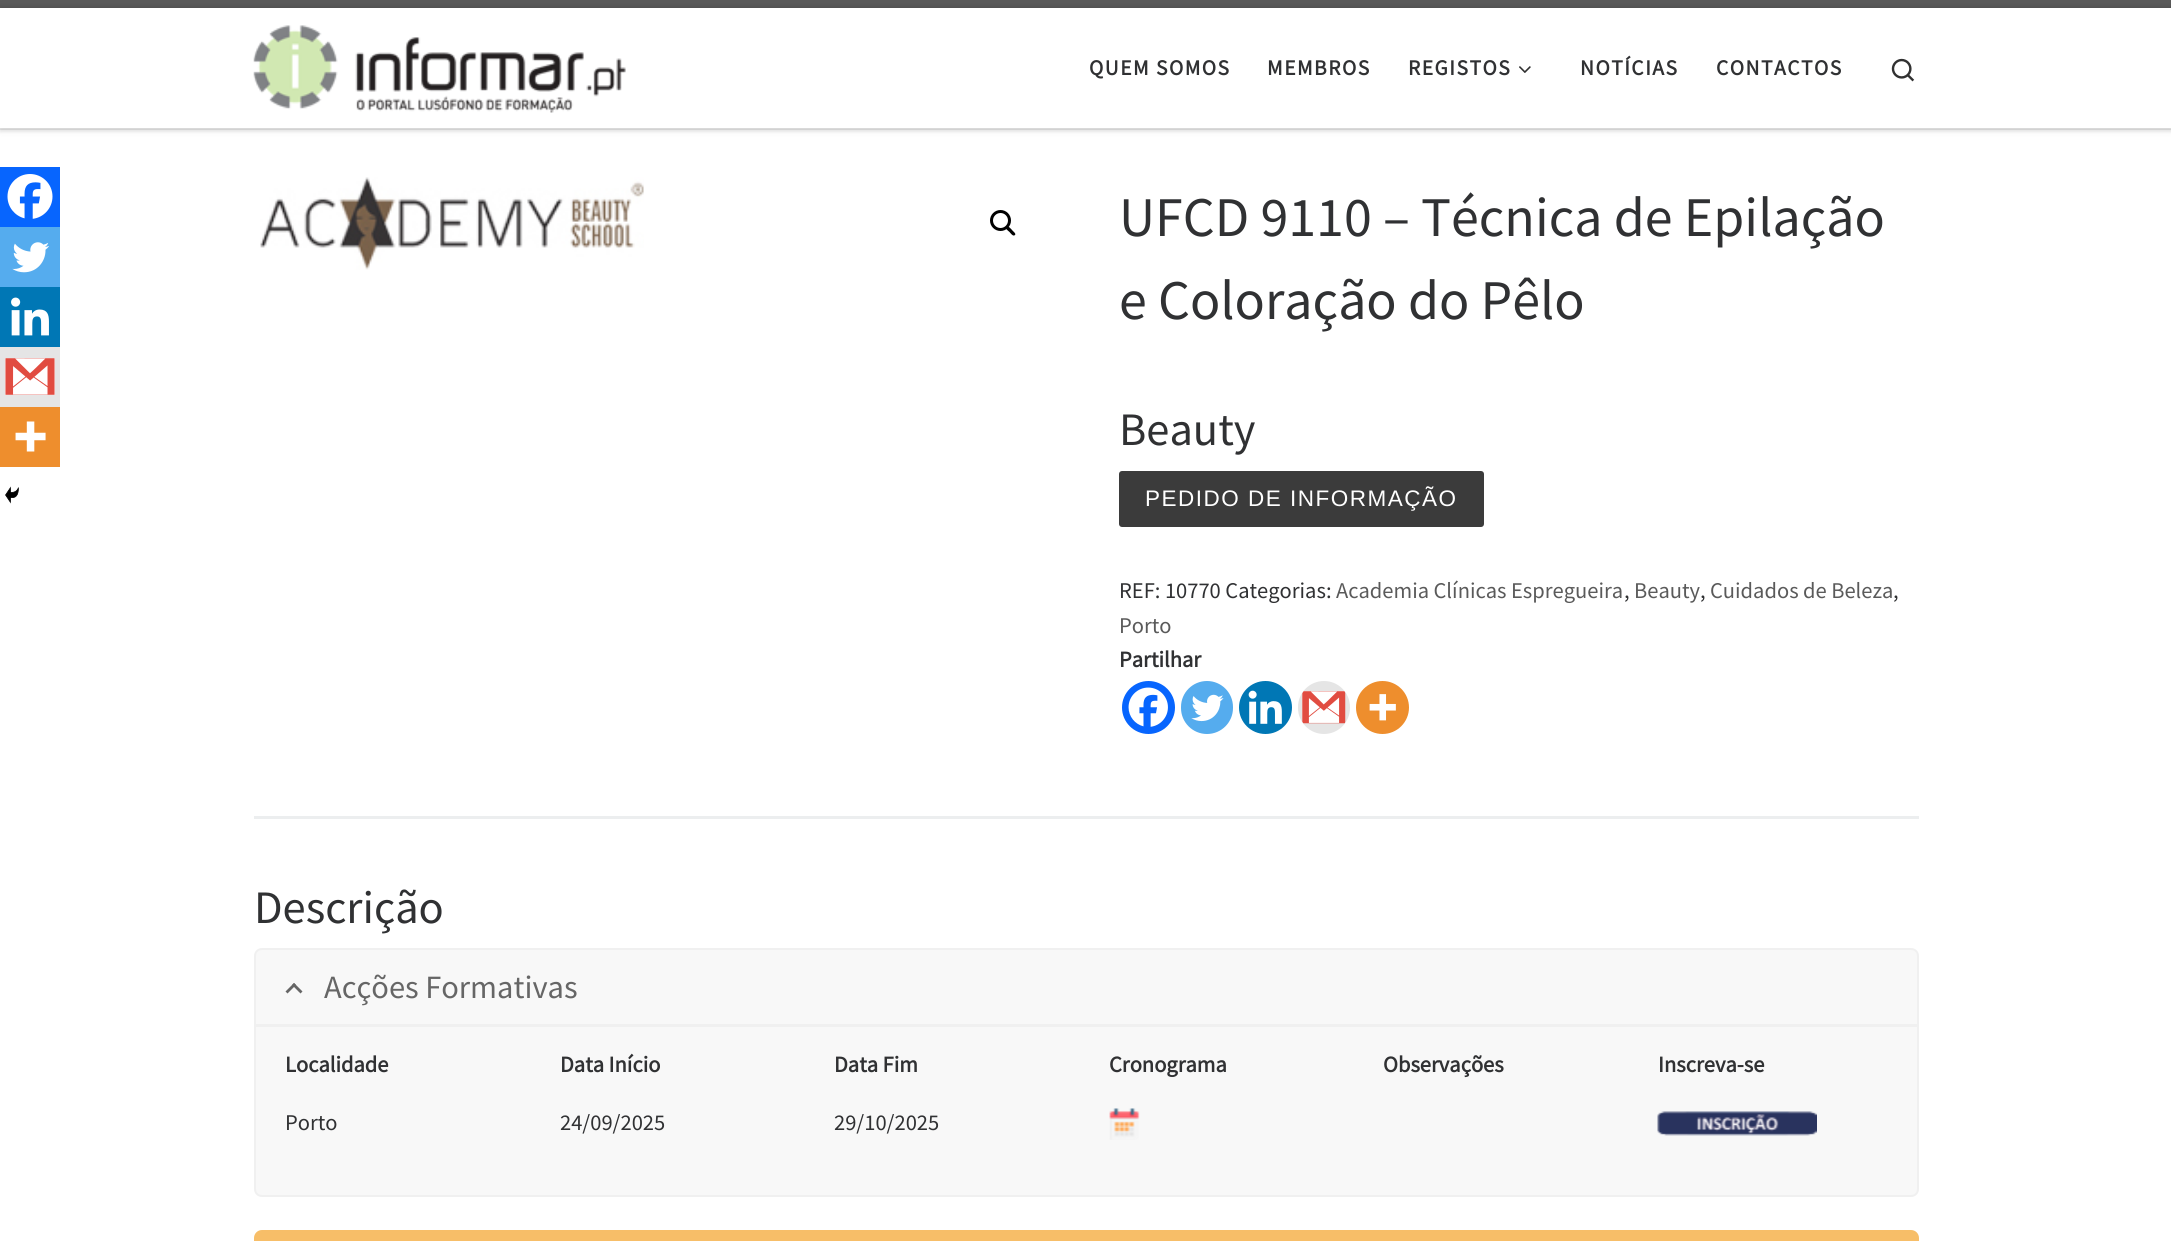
import math
import cairocffi as cairo

surface = cairo.ImageSurface(cairo.FORMAT_RGB24, 2171, 1241)
ctx = cairo.Context(surface)
options = cairo.FontOptions()
options.set_hint_metrics(cairo.HINT_METRICS_OFF)
options.set_hint_style(cairo.HINT_STYLE_NONE)
ctx.set_font_options(options)
ctx.set_miter_limit(4)


def rgb(r, g, b):
    ctx.set_source_rgb(r / 255, g / 255, b / 255)


def face(family, size, italic, bold):
    ctx.select_font_face(family, cairo.FONT_SLANT_ITALIC if italic else cairo.FONT_SLANT_NORMAL, cairo.FONT_WEIGHT_BOLD if bold else cairo.FONT_WEIGHT_NORMAL)
    ctx.set_font_size(size)


def label(x, y, s):
    ctx.move_to(x, y)
    ctx.show_text(s)


def tracked(x, y, s, letter, word):
    ctx.move_to(x, y)
    for ch in s:
        ctx.show_text(ch)
        ctx.rel_move_to(letter + word * (ch == ' '), 0)


def rect(x, y, w, h):
    ctx.rectangle(x, y, w, h)
    ctx.fill()


def rrect(x, y, w, h, r):
    ctx.new_sub_path()
    for i, (u, v) in enumerate([(x + w - r, y + h - r), (x + r, y + h - r), (x + r, y + r), (x + w - r, y + r)]):
        ctx.arc(u, v, r, i * math.pi / 2, (i + 1) * math.pi / 2)
    ctx.close_path()


def soft_shadow(x, y, w, h, r, blur, alpha):
    ctx.push_group_with_content(cairo.CONTENT_ALPHA)
    ctx.set_operator(cairo.OPERATOR_SOURCE)
    for i in range(15, -16, -2):
        e = blur * i / 6
        if min(w, h) + 2 * e > 0:
            ctx.set_source_rgba(0, 0, 0, alpha * math.erfc((i - 1) / 8.5) / 2)
            rrect(x - e, y - e, w + 2 * e, h + 2 * e, max(0, min(r + e + blur * .6, min(w, h) / 2 + e)))
            ctx.fill()
    ctx.mask(ctx.pop_group())


def image(path, x, y, w, h):
    ctx.save()
    ctx.set_source_surface(cairo.ImageSurface.create_from_png(path), x, y)
    ctx.rectangle(x, y, w, h)
    ctx.fill()
    ctx.restore()


rgb(255, 255, 255)
ctx.paint()
rgb(102, 102, 102)
soft_shadow(0, 3, 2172, 129, 0, 1.5, 0.08)
rgb(90, 90, 90)
rect(0, 0, 2171, 8)
ctx.set_source_rgba(0.192, 0.192, 0.192, 0.09)
rect(0, 129, 2171, 1)
rgb(239, 239, 239)
rect(0, 128, 2171, 1)
rgb(0, 0, 0)
soft_shadow(0, 8, 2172, 120, 0, 4, 0.2)
rgb(255, 255, 255)
rect(0, 8, 2171, 120)
image('image0.png', 253, 25, 373, 88)
face('Source Sans Pro', 21.5, 0, 1)
rgb(48, 49, 51)
tracked(1089, 75, 'QUEM SOMOS', 1.5, 0)
tracked(1267, 75, 'MEMBROS', 1.5, 0)
tracked(1408, 75, 'REGISTOS', 1.5, 0)
image('image1.png', 1519, 66, 12, 7)
tracked(1580, 75, 'NOTÍCIAS', 1.5, 0)
tracked(1716, 75, 'CONTACTOS', 1.5, 0)
image('image2.png', 1891, 58, 24, 24)
image('image3.png', 260, 177, 384, 93)
ctx.arc(1000.5, 220.5, 9, 0, 2 * math.pi)
rgb(0, 0, 0)
ctx.set_line_width(3)
ctx.stroke()
ctx.new_path()
ctx.move_to(1006.5, 227)
ctx.curve_to(1008, 225, 1011, 229, 1012, 230)
ctx.curve_to(1012.5, 231, 1016.5, 233.5, 1015, 235)
ctx.curve_to(1013, 237, 1010.5, 233, 1009.5, 232)
ctx.curve_to(1008.5, 231, 1004.5, 228.5, 1006.5, 227)
ctx.close_path()
ctx.fill()
face('Source Sans Pro', 56, 0, 0)
rgb(48, 49, 51)
label(1119, 236, 'UFCD 9110 – Técnica de Epilação')
label(1119, 319, 'e Coloração do Pêlo')
face('Source Sans Pro', 46.5, 0, 0)
label(1119, 445, 'Beauty')
rgb(59, 59, 59)
rrect(1120.5, 472.5, 362, 53, 1.5)
ctx.fill_preserve()
ctx.stroke()
face('Liberation Sans', 22.5, 0, 0)
rgb(255, 255, 255)
tracked(1145, 506, 'PEDIDO DE INFORMAÇÃO', 1.5, 0)
face('Source Sans Pro', 22.5, 0, 0)
rgb(48, 49, 51)
label(1119, 598, 'REF: 10770 Categorias:')
rgb(90, 90, 90)
label(1336, 598, 'Academia Clínicas Espregueira')
rgb(48, 49, 51)
label(1624, 598, ',')
rgb(90, 90, 90)
label(1634, 598, 'Beauty')
rgb(48, 49, 51)
label(1700, 598, ',')
rgb(90, 90, 90)
label(1710, 598, 'Cuidados de Beleza')
rgb(48, 49, 51)
label(1893, 598, ',')
rgb(90, 90, 90)
label(1119, 633, 'Porto')
face('Source Sans Pro', 22.5, 0, 1)
rgb(48, 49, 51)
label(1119, 667, 'Partilhar')
rgb(7, 101, 254)
ctx.new_path()
ctx.arc(1148.5, 707.5, 26.5, 0, 2 * math.pi)
ctx.fill()
image('image4.png', 1128, 687, 40, 40)
rgb(85, 172, 238)
rrect(1181, 681, 52, 53, 26)
ctx.fill()
image('image5.png', 1191, 694, 33, 28)
rgb(0, 119, 181)
ctx.arc(1265.5, 707.5, 26.5, 0, 2 * math.pi)
ctx.fill()
image('image6.png', 1248, 690, 34, 34)
rgb(229, 229, 229)
rrect(1298, 681, 52, 53, 26)
ctx.fill()
image('image7.png', 1302, 691, 44, 33)
rgb(238, 142, 45)
ctx.arc(1382.5, 707.5, 26.5, 0, 2 * math.pi)
ctx.fill()
image('image8.png', 1369, 694, 27, 27)
rgb(236, 238, 239)
rect(254, 816, 1665, 3)
rgb(7, 101, 254)
rect(0, 167, 60, 60)
image('image9.png', 7, 174, 46, 45)
rgb(85, 172, 238)
rect(0, 227, 60, 60)
image('image10.png', 12, 242, 37, 31)
rgb(0, 119, 181)
rect(0, 287, 60, 60)
image('image11.png', 11, 297, 38, 39)
rgb(229, 229, 229)
rect(0, 347, 60, 60)
image('image12.png', 5, 358, 50, 37)
rgb(238, 142, 45)
rect(0, 407, 60, 60)
image('image13.png', 15, 421, 31, 31)
image('image14.png', 5, 486, 14, 18)
face('Source Sans Pro', 46.5, 0, 0)
rgb(48, 49, 51)
label(254, 923, 'Descrição')
rgb(248, 248, 248)
ctx.new_path()
ctx.move_to(262, 949)
ctx.line_to(1911, 949)
ctx.curve_to(1915, 949, 1918, 952, 1918, 956)
ctx.line_to(1918, 1025)
ctx.line_to(255, 1025)
ctx.line_to(255, 956)
ctx.curve_to(255, 952, 258, 949, 262, 949)
ctx.close_path()
ctx.fill_preserve()
rgb(240, 240, 240)
ctx.set_line_width(2)
ctx.stroke()
rgb(102, 102, 102)
ctx.new_path()
ctx.move_to(287.5, 993.5)
ctx.line_to(285.5, 991.5)
ctx.line_to(294, 983)
ctx.line_to(296, 985)
ctx.close_path()
ctx.fill()
ctx.new_path()
ctx.move_to(300.5, 993.5)
ctx.line_to(292, 985)
ctx.line_to(294, 983)
ctx.line_to(302.5, 991.5)
ctx.close_path()
ctx.fill()
face('Source Sans Pro', 32.5, 0, 0)
label(324, 998, 'Acções Formativas')
rgb(248, 248, 248)
ctx.new_path()
ctx.move_to(255, 1026)
ctx.line_to(1918, 1026)
ctx.line_to(1918, 1189)
ctx.curve_to(1918, 1193, 1915, 1196, 1911, 1196)
ctx.line_to(262, 1196)
ctx.curve_to(258, 1196, 255, 1193, 255, 1189)
ctx.close_path()
ctx.fill_preserve()
rgb(240, 240, 240)
ctx.stroke()
face('Source Sans Pro', 22.5, 0, 1)
rgb(48, 49, 51)
label(285, 1072, 'Localidade')
face('Source Sans Pro', 22.5, 0, 0)
label(285, 1130, 'Porto')
face('Source Sans Pro', 22.5, 0, 1)
label(560, 1072, 'Data Início')
face('Source Sans Pro', 22.5, 0, 0)
label(560, 1130, '24/09/2025')
face('Source Sans Pro', 22.5, 0, 1)
label(834, 1072, 'Data Fim')
face('Source Sans Pro', 22.5, 0, 0)
label(834, 1130, '29/10/2025')
face('Source Sans Pro', 22.5, 0, 1)
label(1109, 1072, 'Cronograma')
image('image15.png', 1109, 1108, 31, 32)
label(1383, 1072, 'Observações')
label(1658, 1072, 'Inscreva-se')
image('image16.png', 1657, 1111, 160, 25)
rgb(247, 190, 104)
rrect(254, 1230, 1665, 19, 8)
ctx.fill()
surface.write_to_png('render.png')
